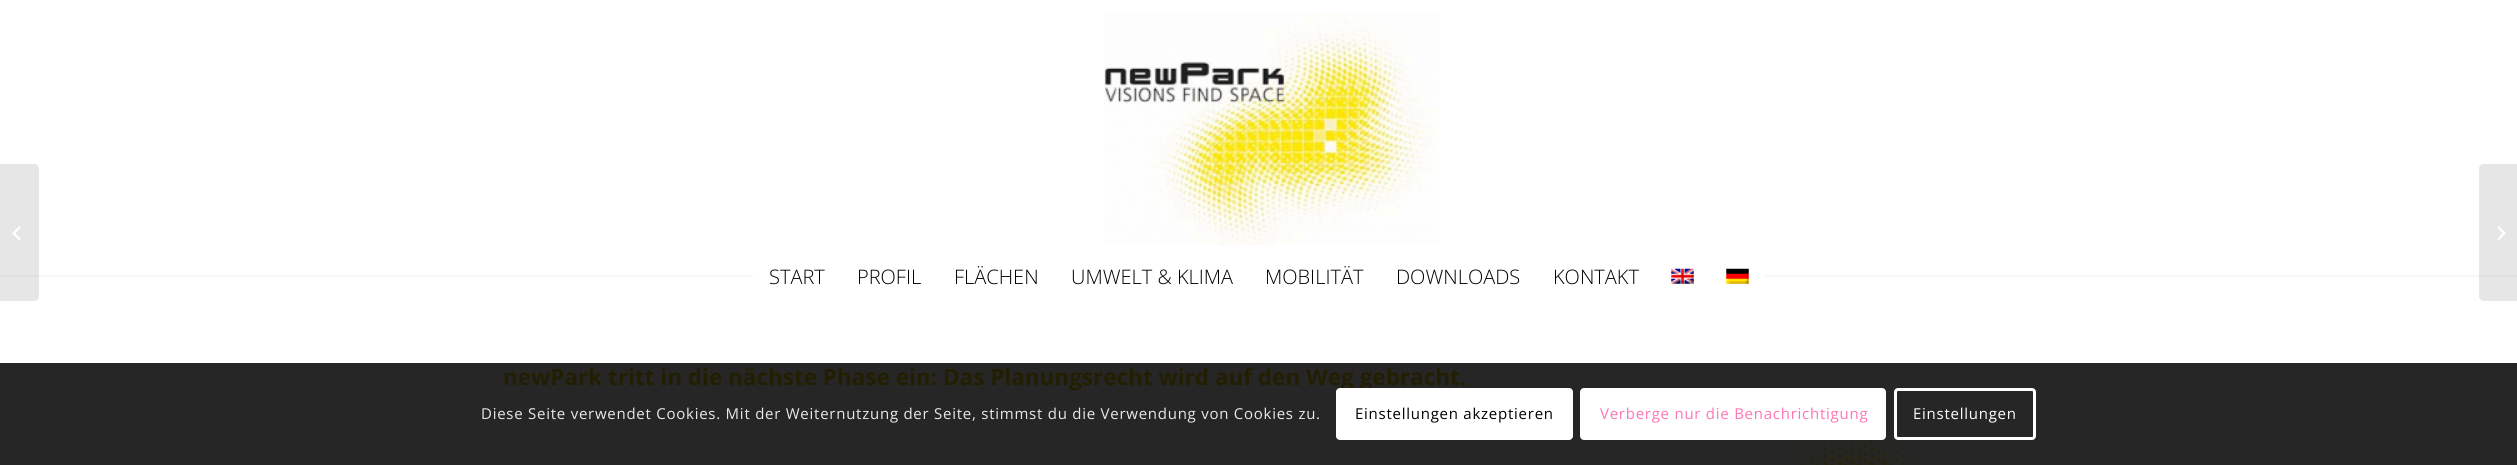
import math
import cairocffi as cairo

surface = cairo.ImageSurface(cairo.FORMAT_RGB24, 2517, 465)
ctx = cairo.Context(surface)
options = cairo.FontOptions()
options.set_hint_metrics(cairo.HINT_METRICS_OFF)
options.set_hint_style(cairo.HINT_STYLE_NONE)
ctx.set_font_options(options)
ctx.set_miter_limit(4)


def rgb(r, g, b):
    ctx.set_source_rgb(r / 255, g / 255, b / 255)


def face(family, size, italic, bold):
    ctx.select_font_face(family, cairo.FONT_SLANT_ITALIC if italic else cairo.FONT_SLANT_NORMAL, cairo.FONT_WEIGHT_BOLD if bold else cairo.FONT_WEIGHT_NORMAL)
    ctx.set_font_size(size)


def label(x, y, s):
    ctx.move_to(x, y)
    ctx.show_text(s)


def tracked(x, y, s, letter, word):
    ctx.move_to(x, y)
    for ch in s:
        ctx.show_text(ch)
        ctx.rel_move_to(letter + word * (ch == ' '), 0)


def rect(x, y, w, h):
    ctx.rectangle(x, y, w, h)
    ctx.fill()


def rrect(x, y, w, h, r):
    ctx.new_sub_path()
    for i, (u, v) in enumerate([(x + w - r, y + h - r), (x + r, y + h - r), (x + r, y + r), (x + w - r, y + r)]):
        ctx.arc(u, v, r, i * math.pi / 2, (i + 1) * math.pi / 2)
    ctx.close_path()


def image(path, x, y, w, h):
    ctx.save()
    ctx.set_source_surface(cairo.ImageSurface.create_from_png(path), x, y)
    ctx.rectangle(x, y, w, h)
    ctx.fill()
    ctx.restore()


rgb(255, 255, 255)
ctx.paint()
rgb(248, 248, 248)
rect(0, 275, 2517, 2)
ctx.set_source_rgba(0, 0, 0, 0.1)
ctx.new_path()
ctx.move_to(0, 164)
ctx.line_to(34, 164)
ctx.curve_to(37, 164, 39, 166, 39, 169)
ctx.line_to(39, 296)
ctx.curve_to(39, 299, 37, 301, 34, 301)
ctx.line_to(0, 301)
ctx.close_path()
ctx.fill()
image('image0.png', 12, 226, 9, 14)
image('image1.png', 1104, 13, 335, 232)
rgb(255, 255, 255)
rect(753, 275, 1012, 2)
face('Open Sans Light', 20, 0, 0)
rgb(0, 0, 0)
label(769, 284, 'START')
label(857, 284, 'PROFIL')
label(954, 284, 'FLÄCHEN')
label(1071, 284, 'UMWELT & KLIMA')
label(1265, 284, 'MOBILITÄT')
label(1396, 284, 'DOWNLOADS')
label(1553, 284, 'KONTAKT')
image('image2.png', 1671, 268, 23, 16)
image('image3.png', 1726, 268, 23, 16)
ctx.set_source_rgba(0, 0, 0, 0.1)
ctx.new_path()
ctx.move_to(2484, 164)
ctx.line_to(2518, 164)
ctx.line_to(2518, 301)
ctx.line_to(2484, 301)
ctx.curve_to(2481, 301, 2479, 299, 2479, 296)
ctx.line_to(2479, 169)
ctx.curve_to(2479, 166, 2481, 164, 2484, 164)
ctx.close_path()
ctx.fill()
image('image4.png', 2497, 226, 9, 14)
rgb(38, 38, 38)
rect(0, 363, 2517, 102)
face('Open Sans', 22.5, 0, 1)
rgb(34, 30, 2)
label(503, 385, 'newPark tritt in die nächste Phase ein: Das Planungsrecht wird auf den Weg gebracht.')
image('image5.png', 1763, 420, 169, 45)
face('Open Sans', 15, 0, 0)
rgb(233, 233, 233)
tracked(481, 419, 'Diese Seite verwendet Cookies. Mit der Weiternutzung der Seite, stimmst du die Verwendung von Cookies zu.', 0.75, 0)
rgb(255, 255, 255)
rrect(1336, 388, 237, 52, 4)
ctx.fill()
rgb(0, 0, 0)
tracked(1355, 419, 'Einstellungen akzeptieren', 0.75, 0)
rgb(255, 255, 255)
rrect(1581.5, 389.5, 303, 49, 2.5)
ctx.fill_preserve()
ctx.set_line_width(3)
ctx.stroke()
rgb(255, 117, 181)
tracked(1600, 419, 'Verberge nur die Benachrichtigung', 0.75, 0)
rrect(1895.5, 389.5, 139, 49, 2.5)
rgb(255, 255, 255)
ctx.stroke()
tracked(1913, 419, 'Einstellungen', 0.75, 0)
surface.write_to_png('render.png')
